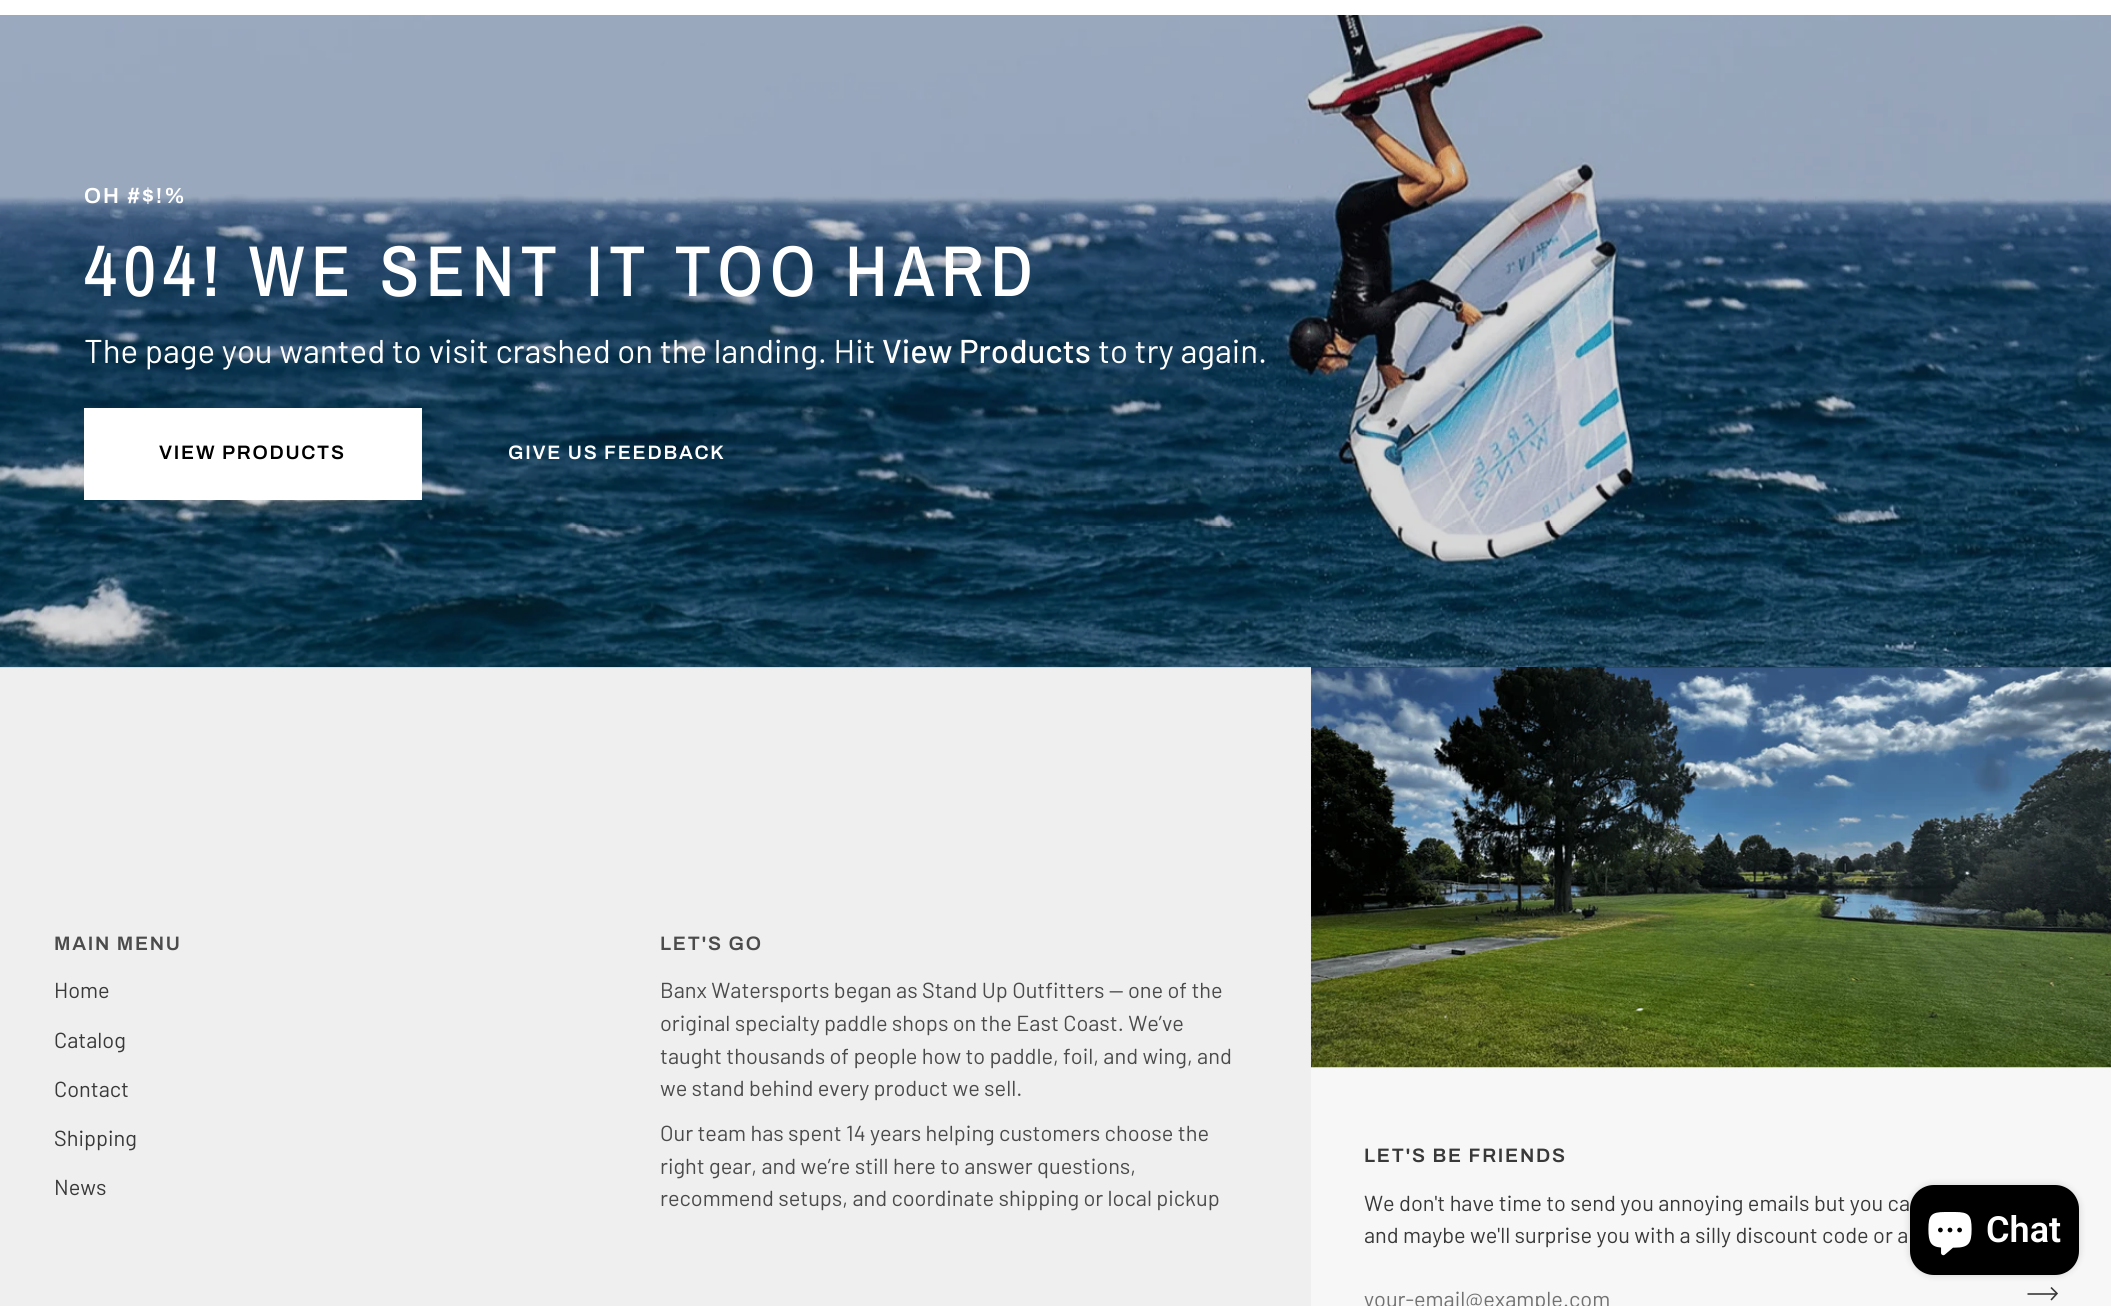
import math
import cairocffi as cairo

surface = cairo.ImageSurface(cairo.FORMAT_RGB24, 2111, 1306)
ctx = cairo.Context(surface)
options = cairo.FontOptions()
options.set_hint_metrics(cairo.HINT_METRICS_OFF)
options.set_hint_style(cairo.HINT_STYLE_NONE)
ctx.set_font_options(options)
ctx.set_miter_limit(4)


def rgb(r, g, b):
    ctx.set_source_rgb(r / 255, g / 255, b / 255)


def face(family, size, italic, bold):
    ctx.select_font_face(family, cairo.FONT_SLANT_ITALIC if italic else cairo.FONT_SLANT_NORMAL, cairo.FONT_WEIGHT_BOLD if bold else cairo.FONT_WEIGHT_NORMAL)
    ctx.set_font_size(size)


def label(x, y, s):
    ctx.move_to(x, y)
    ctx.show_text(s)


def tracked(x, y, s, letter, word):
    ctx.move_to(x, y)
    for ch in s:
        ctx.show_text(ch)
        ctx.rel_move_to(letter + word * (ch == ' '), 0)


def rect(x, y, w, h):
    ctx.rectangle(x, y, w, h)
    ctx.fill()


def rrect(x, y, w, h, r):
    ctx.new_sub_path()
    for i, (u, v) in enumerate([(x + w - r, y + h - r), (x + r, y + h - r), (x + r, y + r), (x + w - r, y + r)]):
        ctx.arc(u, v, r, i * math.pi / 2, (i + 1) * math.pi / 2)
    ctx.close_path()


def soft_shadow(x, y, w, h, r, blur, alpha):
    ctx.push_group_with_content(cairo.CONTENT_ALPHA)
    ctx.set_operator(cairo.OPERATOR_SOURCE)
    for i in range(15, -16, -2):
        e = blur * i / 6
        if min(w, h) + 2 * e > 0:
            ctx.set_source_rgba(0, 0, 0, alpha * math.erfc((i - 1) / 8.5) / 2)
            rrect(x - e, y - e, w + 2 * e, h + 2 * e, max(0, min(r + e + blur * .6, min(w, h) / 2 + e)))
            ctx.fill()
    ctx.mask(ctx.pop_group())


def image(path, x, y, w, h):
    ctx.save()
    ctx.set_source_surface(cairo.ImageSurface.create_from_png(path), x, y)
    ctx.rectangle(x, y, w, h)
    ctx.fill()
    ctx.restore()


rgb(255, 255, 255)
ctx.paint()
image('image0.png', 0, 15, 2111, 652)
rgb(247, 247, 247)
rect(1311, 1067, 800, 239)
image('image1.png', 1311, 667, 800, 401)
ctx.set_source_rgba(0, 0, 0, 0.15)
rect(0, 15, 2111, 653)
face('Archivo SemiBold', 21.75, 0, 0)
rgb(255, 255, 255)
tracked(84, 203, 'OH #$!%', 2, 0)
face('Archivo Narrow Medium', 72, 0, 0)
tracked(84, 296, '404! WE SENT IT TOO HARD', 6.5, 0)
face('Barlow', 33, 0, 0)
label(84, 363, 'The page you wanted to visit crashed on the landing. Hit')
face('Barlow Medium', 33, 0, 0)
label(882, 363, 'View Products')
face('Barlow', 33, 0, 0)
label(1098, 363, 'to try again.')
rect(84, 408, 338, 92)
face('Archivo SemiBold', 19.5, 0, 0)
rgb(0, 0, 0)
tracked(159, 459, 'VIEW PRODUCTS', 1.75, 0)
ctx.save()
ctx.rectangle(509, 437, 217, 34)
ctx.clip()
rgb(255, 255, 255)
tracked(508, 459, 'GIVE US FEEDBACK', 1.75, 0)
ctx.restore()
rgb(239, 239, 239)
rect(0, 668, 1311, 638)
rgb(75, 75, 75)
tracked(54, 950, 'MAIN MENU', 1.75, 0)
face('Barlow', 21.75, 0, 0)
rgb(57, 57, 57)
label(54, 998, 'Home')
label(54, 1048, 'Catalog')
label(54, 1097, 'Contact')
label(54, 1146, 'Shipping')
label(54, 1195, 'News')
face('Archivo SemiBold', 19.5, 0, 0)
rgb(75, 75, 75)
tracked(660, 950, 'LET\'S GO', 1.75, 0)
face('Barlow', 21.75, 0, 0)
label(660, 998, 'Banx Watersports began as Stand Up Outfitters — one of the')
label(660, 1031, 'original specialty paddle shops on the East Coast. We’ve')
label(660, 1064, 'taught thousands of people how to paddle, foil, and wing, and')
label(660, 1096, 'we stand behind every product we sell.')
label(660, 1141, 'Our team has spent 14 years helping customers choose the')
label(660, 1174, 'right gear, and we’re still here to answer questions,')
label(660, 1206, 'recommend setups, and coordinate shipping or local pickup')
face('Archivo SemiBold', 19.5, 0, 0)
rgb(57, 57, 57)
tracked(1364, 1162, 'LET\'S BE FRIENDS', 1.75, 0)
face('Barlow', 21.75, 0, 0)
label(1364, 1211, 'We don\'t have time to send you annoying emails but you ca')
label(1364, 1243, 'and maybe we\'ll surprise you with a silly discount code or a')
rgb(113, 113, 113)
label(1364, 1307, 'your-email@example.com')
ctx.new_path()
ctx.move_to(2051, 1287.5)
ctx.line_to(2057, 1293.5)
ctx.line_to(2051, 1300)
ctx.move_to(2027.5, 1294)
ctx.line_to(2057, 1294)
rgb(55, 55, 55)
ctx.set_line_width(1.6)
ctx.stroke()
rgb(0, 0, 0)
soft_shadow(1910, 1185, 169, 90, 24, 4, 0.15)
rgb(0, 0, 0)
rrect(1910, 1185, 169, 90, 24)
ctx.fill()
image('image2.png', 1928, 1212, 44, 44)
face('Roboto SemiBold', 36, 0, 0)
rgb(255, 255, 255)
label(1986, 1242, 'Chat')
surface.write_to_png('render.png')
